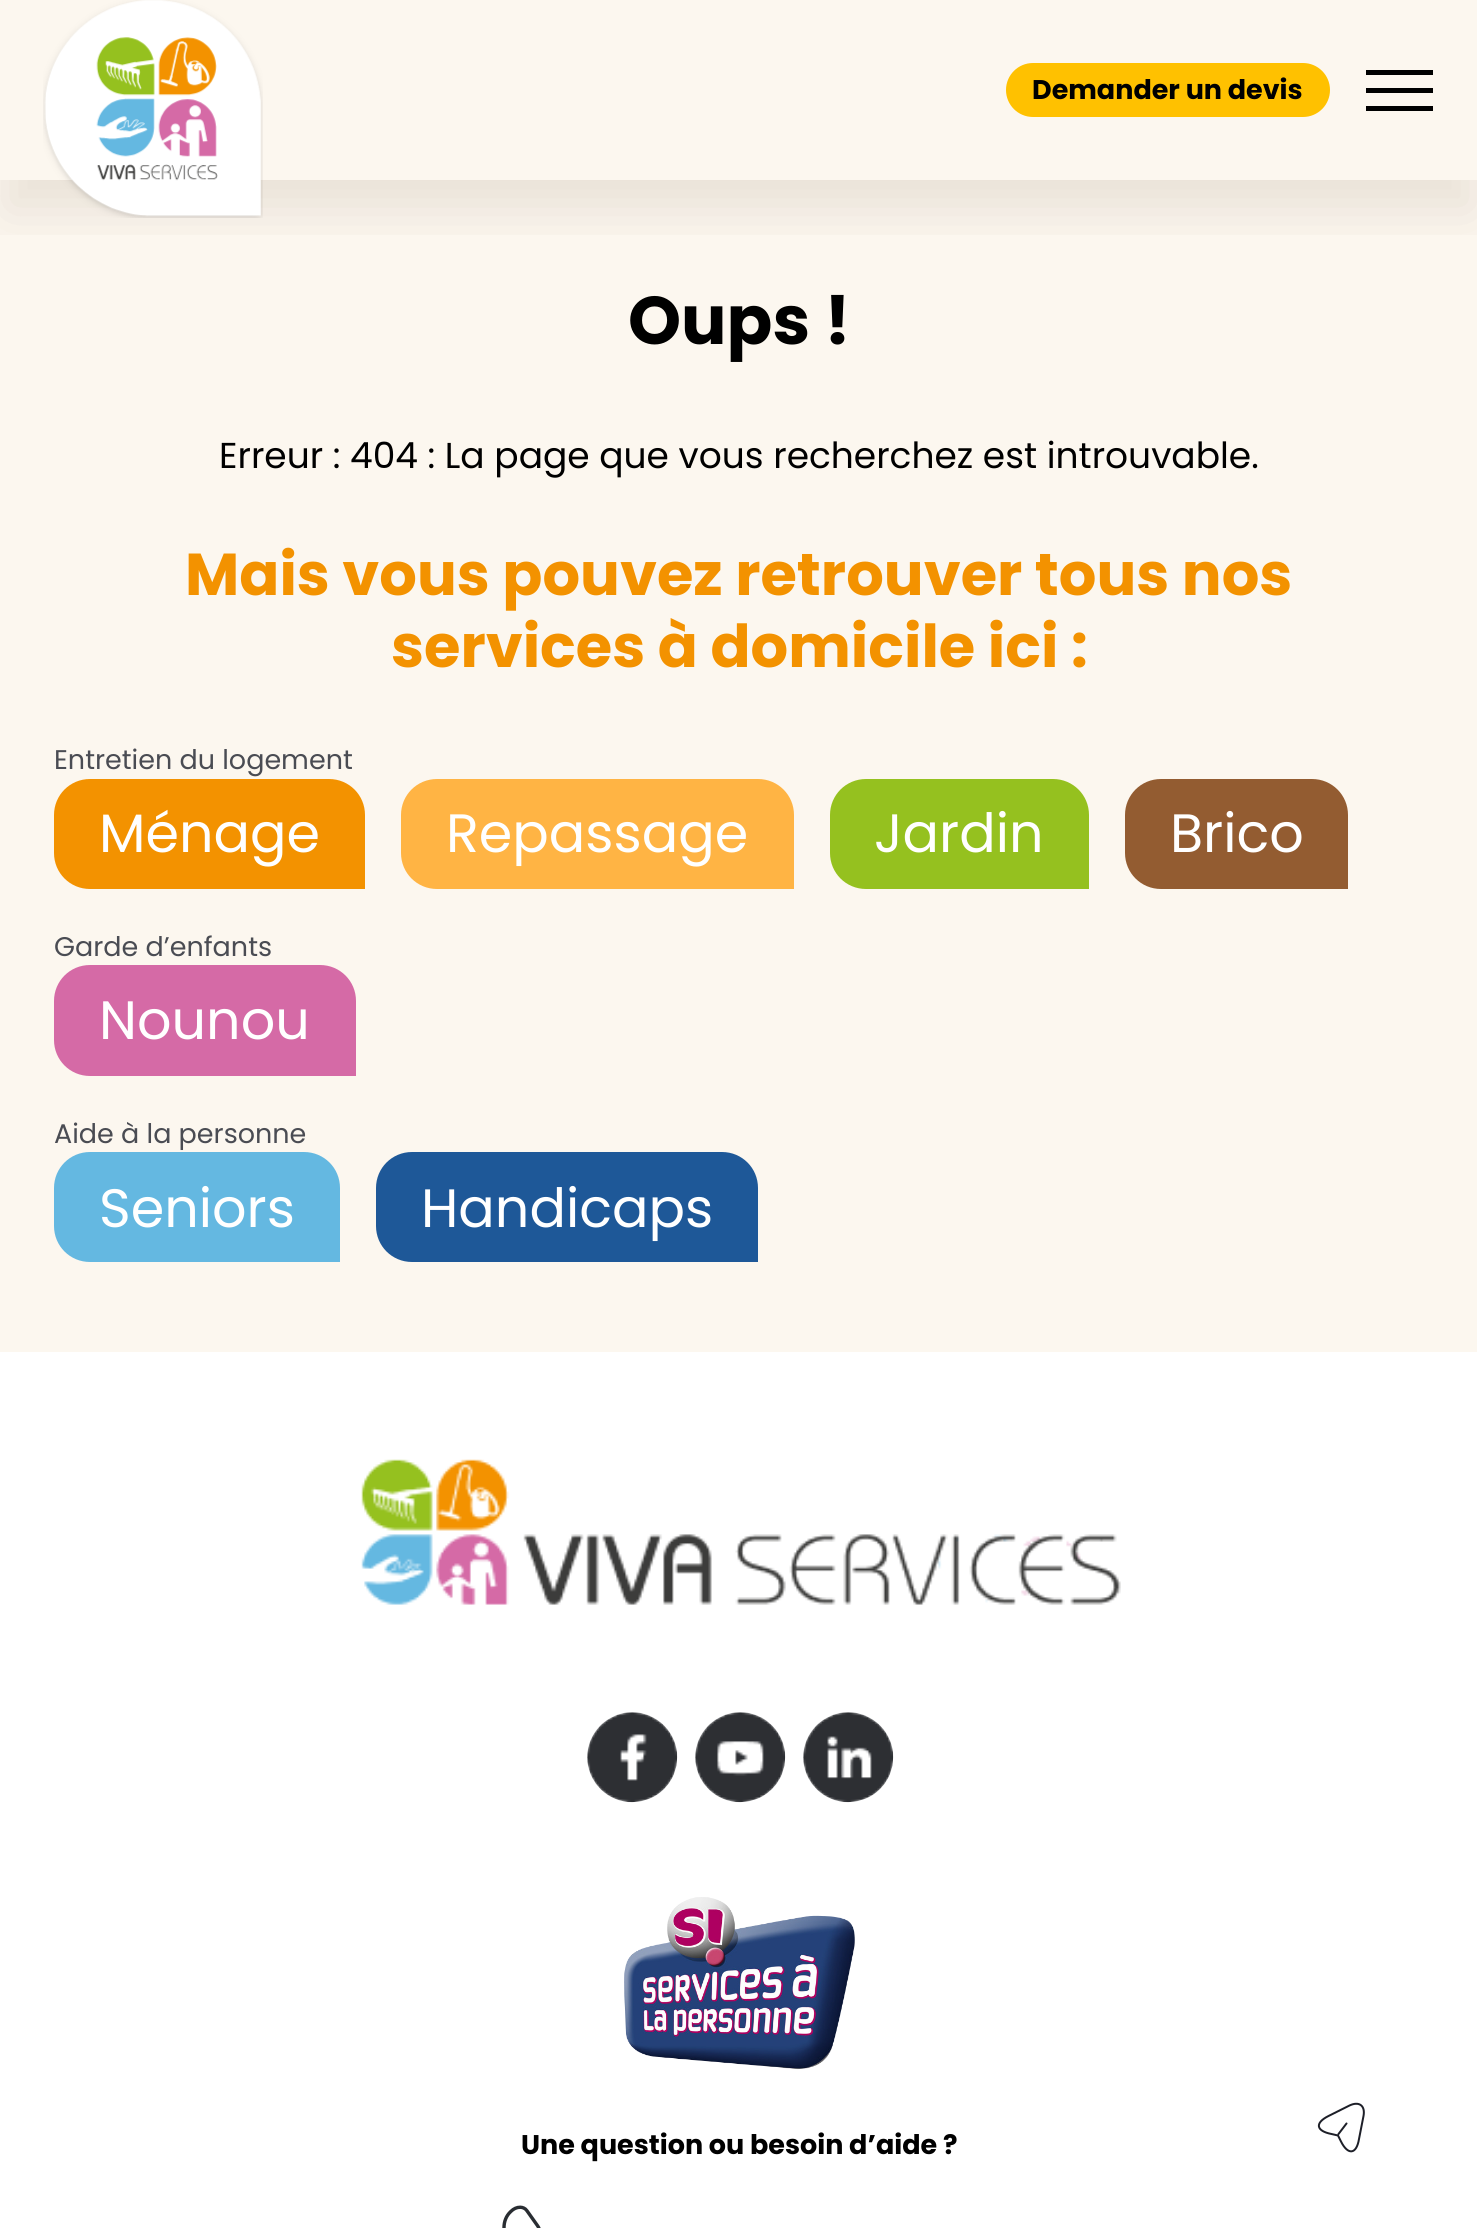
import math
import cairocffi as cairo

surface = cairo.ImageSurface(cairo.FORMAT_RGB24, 1477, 2228)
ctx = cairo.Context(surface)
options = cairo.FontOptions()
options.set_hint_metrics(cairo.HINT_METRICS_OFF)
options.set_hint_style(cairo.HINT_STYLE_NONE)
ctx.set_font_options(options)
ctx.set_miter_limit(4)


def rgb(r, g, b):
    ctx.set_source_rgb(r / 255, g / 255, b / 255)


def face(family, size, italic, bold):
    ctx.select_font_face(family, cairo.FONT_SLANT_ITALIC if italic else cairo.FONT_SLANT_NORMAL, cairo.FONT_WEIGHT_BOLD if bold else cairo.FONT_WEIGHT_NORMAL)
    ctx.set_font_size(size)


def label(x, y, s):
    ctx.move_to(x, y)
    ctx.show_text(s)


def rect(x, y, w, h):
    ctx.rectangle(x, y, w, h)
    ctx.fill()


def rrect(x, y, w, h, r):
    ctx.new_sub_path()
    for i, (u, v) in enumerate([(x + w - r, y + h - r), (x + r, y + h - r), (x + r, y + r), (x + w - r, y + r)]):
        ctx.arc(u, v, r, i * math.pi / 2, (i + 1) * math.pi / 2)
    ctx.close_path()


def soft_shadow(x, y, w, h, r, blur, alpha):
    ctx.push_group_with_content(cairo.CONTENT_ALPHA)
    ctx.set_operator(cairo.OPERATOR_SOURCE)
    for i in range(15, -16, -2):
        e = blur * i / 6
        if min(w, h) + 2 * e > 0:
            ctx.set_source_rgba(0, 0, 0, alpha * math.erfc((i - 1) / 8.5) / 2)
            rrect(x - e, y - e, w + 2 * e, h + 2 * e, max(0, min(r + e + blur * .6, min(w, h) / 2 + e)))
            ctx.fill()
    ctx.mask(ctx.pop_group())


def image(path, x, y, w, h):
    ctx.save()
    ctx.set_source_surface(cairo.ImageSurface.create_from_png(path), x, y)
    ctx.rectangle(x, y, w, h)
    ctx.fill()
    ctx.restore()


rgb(252, 247, 239)
ctx.paint()
ctx.save()
ctx.rectangle(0, 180, 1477, 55)
ctx.clip()
rgb(64, 27, 4)
soft_shadow(5, 41, 1469, 171, 0, 27, 0.1)
ctx.restore()
image('image0.png', 43, 0, 220, 218)
rgb(255, 193, 0)
rrect(1006, 63, 324, 54, 27)
ctx.fill()
face('Poppins', 27, 0, 1)
rgb(0, 0, 0)
label(1032, 99, 'Demander un devis')
rect(1366, 88, 67, 5)
rect(1366, 70, 67, 5)
rect(1366, 106, 67, 5)
face('Poppins', 67.5, 0, 1)
label(628, 344, 'Oups !')
face('Poppins', 36, 0, 0)
label(219, 468, 'Erreur : 404 : La page que vous recherchez est introuvable.')
face('Poppins', 59.1, 0, 1)
rgb(243, 146, 0)
label(185, 595, 'Mais vous pouvez retrouver tous nos')
label(391, 667, 'services à domicile ici :')
face('Poppins', 27, 0, 0)
rgb(74, 76, 83)
label(54, 769, 'Entretien du logement')
rgb(243, 146, 0)
ctx.new_path()
ctx.move_to(90, 779)
ctx.line_to(329, 779)
ctx.curve_to(349, 779, 365, 795, 365, 815)
ctx.line_to(365, 889)
ctx.line_to(90, 889)
ctx.curve_to(70, 889, 54, 873, 54, 853)
ctx.line_to(54, 815)
ctx.curve_to(54, 795, 70, 779, 90, 779)
ctx.close_path()
ctx.fill()
face('Poppins', 54, 0, 0)
rgb(255, 255, 255)
label(99, 852, 'Ménage')
rgb(255, 180, 68)
ctx.new_path()
ctx.move_to(437, 779)
ctx.line_to(758, 779)
ctx.curve_to(778, 779, 794, 795, 794, 815)
ctx.line_to(794, 889)
ctx.line_to(437, 889)
ctx.curve_to(417, 889, 401, 873, 401, 853)
ctx.line_to(401, 815)
ctx.curve_to(401, 795, 417, 779, 437, 779)
ctx.close_path()
ctx.fill()
rgb(255, 255, 255)
label(446, 852, 'Repassage')
rgb(149, 193, 31)
ctx.new_path()
ctx.move_to(866, 779)
ctx.line_to(1053, 779)
ctx.curve_to(1073, 779, 1089, 795, 1089, 815)
ctx.line_to(1089, 889)
ctx.line_to(866, 889)
ctx.curve_to(846, 889, 830, 873, 830, 853)
ctx.line_to(830, 815)
ctx.curve_to(830, 795, 846, 779, 866, 779)
ctx.close_path()
ctx.fill()
rgb(255, 255, 255)
label(874, 852, 'Jardin')
rgb(147, 92, 49)
ctx.new_path()
ctx.move_to(1161, 779)
ctx.line_to(1312, 779)
ctx.curve_to(1332, 779, 1348, 795, 1348, 815)
ctx.line_to(1348, 889)
ctx.line_to(1161, 889)
ctx.curve_to(1141, 889, 1125, 873, 1125, 853)
ctx.line_to(1125, 815)
ctx.curve_to(1125, 795, 1141, 779, 1161, 779)
ctx.close_path()
ctx.fill()
rgb(255, 255, 255)
label(1170, 852, 'Brico')
face('Poppins', 27, 0, 0)
rgb(74, 76, 83)
label(54, 956, 'Garde d’enfants')
rgb(213, 106, 166)
ctx.new_path()
ctx.move_to(90, 965)
ctx.line_to(320, 965)
ctx.curve_to(340, 965, 356, 981, 356, 1001)
ctx.line_to(356, 1076)
ctx.line_to(90, 1076)
ctx.curve_to(70, 1076, 54, 1060, 54, 1040)
ctx.line_to(54, 1001)
ctx.curve_to(54, 981, 70, 965, 90, 965)
ctx.close_path()
ctx.fill()
face('Poppins', 54, 0, 0)
rgb(255, 255, 255)
label(99, 1039, 'Nounou')
face('Poppins', 27, 0, 0)
rgb(74, 76, 83)
label(54, 1143, 'Aide à la personne')
rgb(100, 184, 225)
ctx.new_path()
ctx.move_to(90, 1152)
ctx.line_to(304, 1152)
ctx.curve_to(324, 1152, 340, 1168, 340, 1188)
ctx.line_to(340, 1262)
ctx.line_to(90, 1262)
ctx.curve_to(70, 1262, 54, 1246, 54, 1226)
ctx.line_to(54, 1188)
ctx.curve_to(54, 1168, 70, 1152, 90, 1152)
ctx.close_path()
ctx.fill()
face('Poppins', 54, 0, 0)
rgb(255, 255, 255)
label(99, 1227, 'Seniors')
rgb(30, 88, 152)
ctx.new_path()
ctx.move_to(412, 1152)
ctx.line_to(722, 1152)
ctx.curve_to(742, 1152, 758, 1168, 758, 1188)
ctx.line_to(758, 1262)
ctx.line_to(412, 1262)
ctx.curve_to(392, 1262, 376, 1246, 376, 1226)
ctx.line_to(376, 1188)
ctx.curve_to(376, 1168, 392, 1152, 412, 1152)
ctx.close_path()
ctx.fill()
rgb(255, 255, 255)
label(421, 1227, 'Handicaps')
rect(0, 1352, 1477, 876)
image('image1.png', 361, 1459, 760, 146)
image('image2.png', 587, 1712, 91, 91)
image('image3.png', 695, 1712, 91, 91)
image('image4.png', 803, 1712, 91, 91)
image('image5.png', 624, 1897, 231, 173)
face('Poppins', 27, 0, 1)
rgb(0, 0, 0)
label(521, 2154, 'Une question ou besoin d’aide ?')
image('image6.png', 502, 2205, 39, 23)
ctx.new_path()
ctx.move_to(1328.5, 2116)
ctx.line_to(1349.5, 2105.5)
ctx.curve_to(1359, 2101, 1365.5, 2105.5, 1363.5, 2116)
ctx.line_to(1359, 2139)
ctx.curve_to(1356.5, 2154.5, 1348, 2155.5, 1341, 2141.5)
ctx.line_to(1338, 2135.5)
ctx.line_to(1331.5, 2134)
ctx.curve_to(1316, 2131, 1314.5, 2123, 1328.5, 2116)
ctx.close_path()
ctx.move_to(1338.5, 2134)
ctx.line_to(1346.5, 2123.5)
rgb(29, 31, 40)
ctx.set_line_cap(cairo.LINE_CAP_ROUND)
ctx.set_line_join(cairo.LINE_JOIN_ROUND)
ctx.stroke()
surface.write_to_png('render.png')
